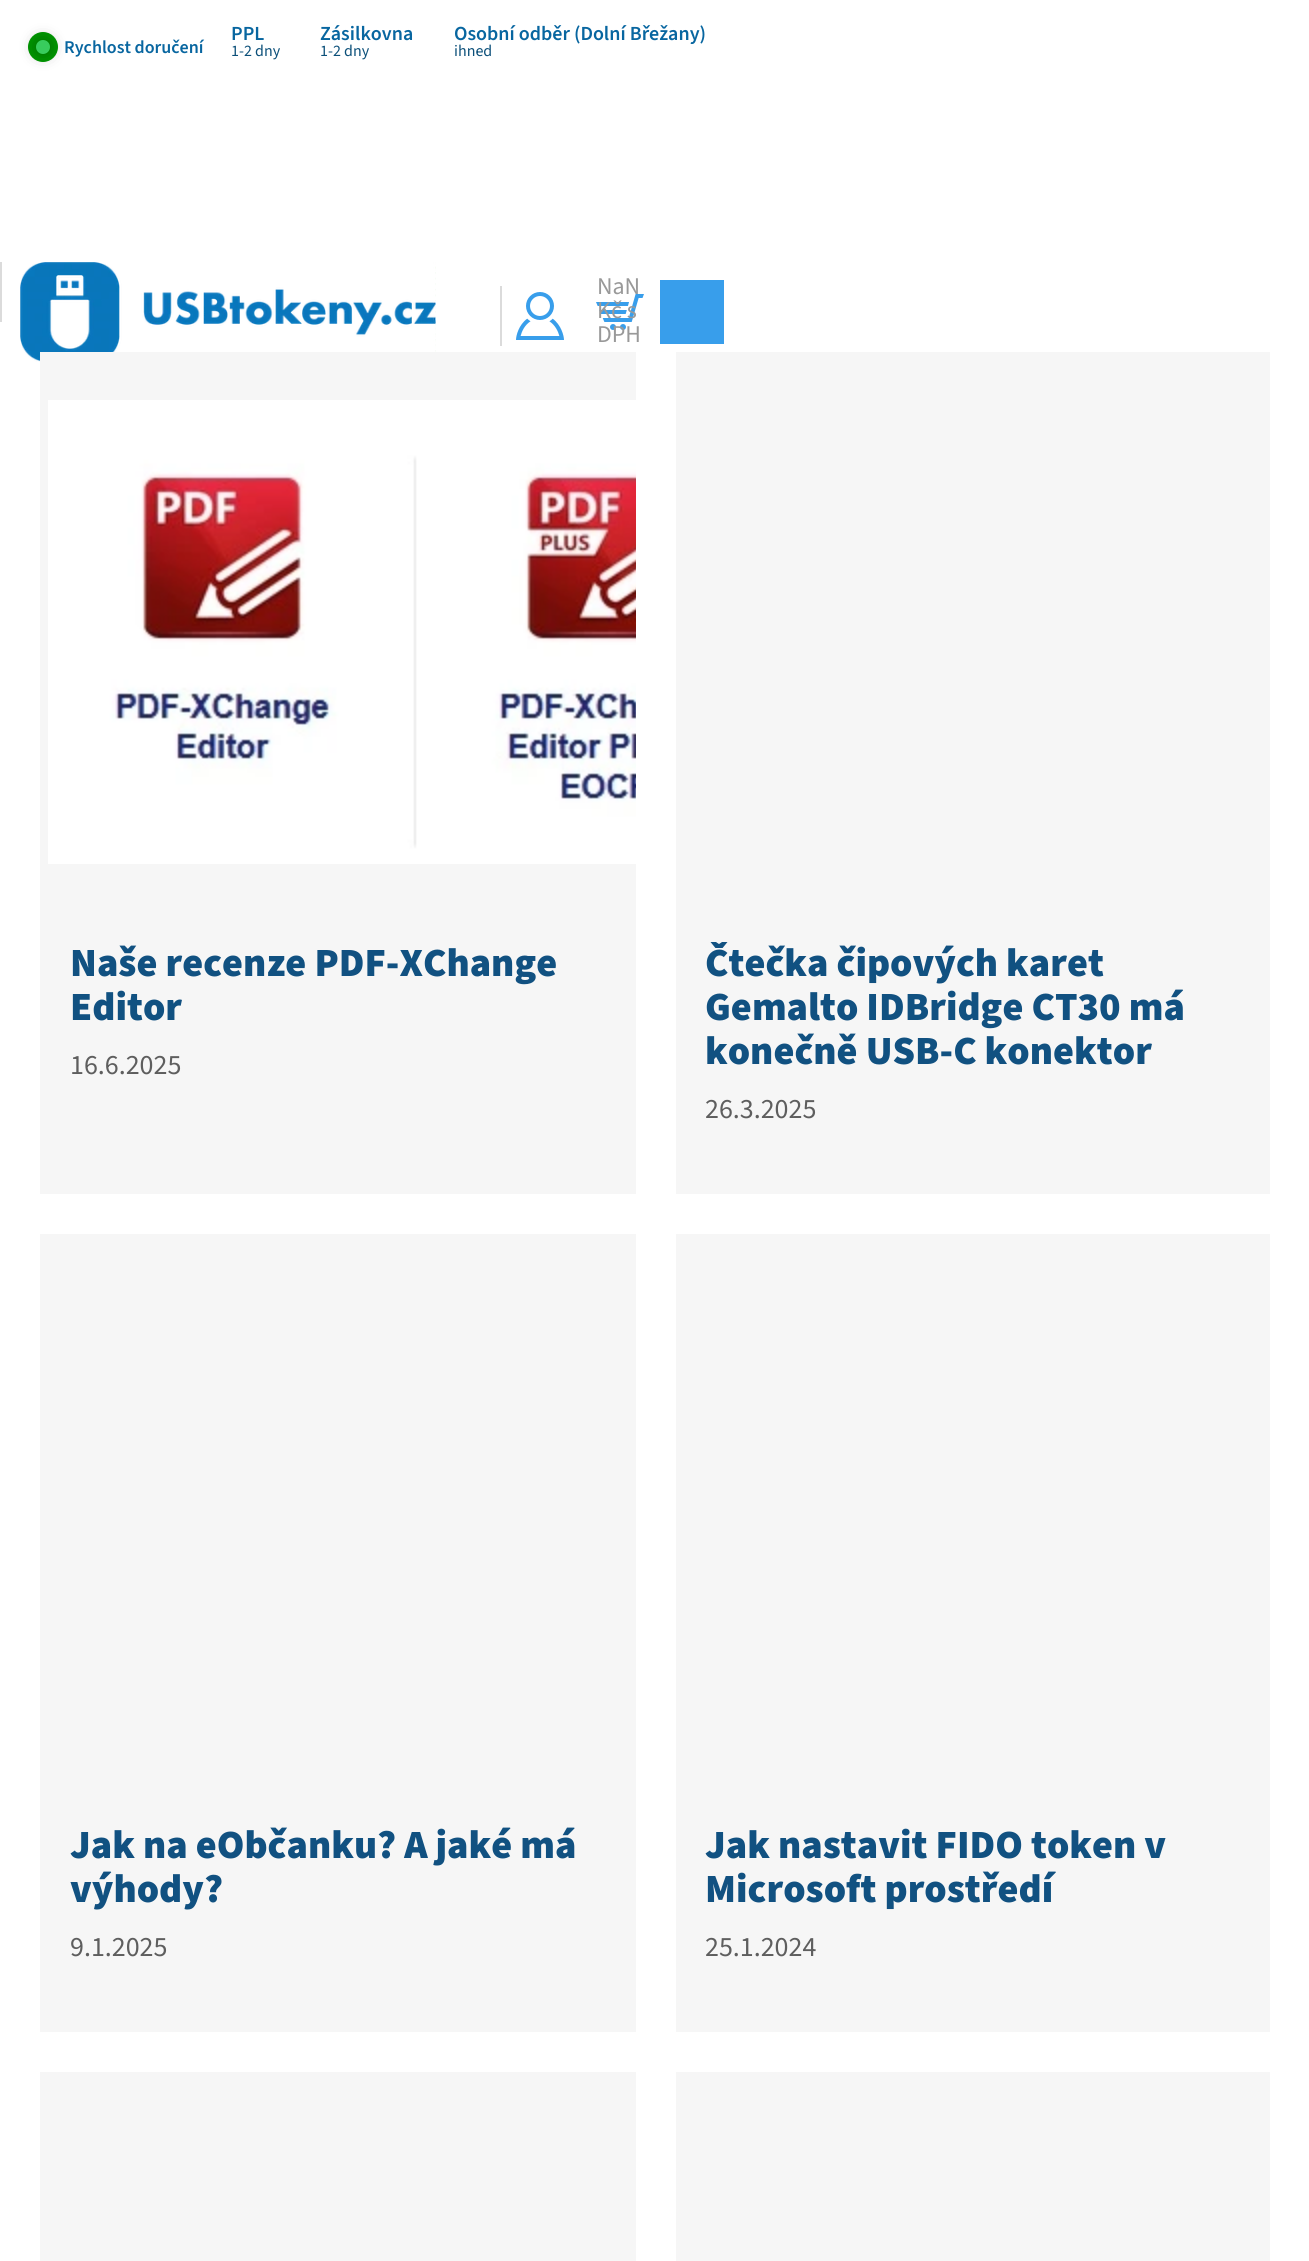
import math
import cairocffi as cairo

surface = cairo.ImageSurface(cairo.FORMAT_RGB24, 1309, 2261)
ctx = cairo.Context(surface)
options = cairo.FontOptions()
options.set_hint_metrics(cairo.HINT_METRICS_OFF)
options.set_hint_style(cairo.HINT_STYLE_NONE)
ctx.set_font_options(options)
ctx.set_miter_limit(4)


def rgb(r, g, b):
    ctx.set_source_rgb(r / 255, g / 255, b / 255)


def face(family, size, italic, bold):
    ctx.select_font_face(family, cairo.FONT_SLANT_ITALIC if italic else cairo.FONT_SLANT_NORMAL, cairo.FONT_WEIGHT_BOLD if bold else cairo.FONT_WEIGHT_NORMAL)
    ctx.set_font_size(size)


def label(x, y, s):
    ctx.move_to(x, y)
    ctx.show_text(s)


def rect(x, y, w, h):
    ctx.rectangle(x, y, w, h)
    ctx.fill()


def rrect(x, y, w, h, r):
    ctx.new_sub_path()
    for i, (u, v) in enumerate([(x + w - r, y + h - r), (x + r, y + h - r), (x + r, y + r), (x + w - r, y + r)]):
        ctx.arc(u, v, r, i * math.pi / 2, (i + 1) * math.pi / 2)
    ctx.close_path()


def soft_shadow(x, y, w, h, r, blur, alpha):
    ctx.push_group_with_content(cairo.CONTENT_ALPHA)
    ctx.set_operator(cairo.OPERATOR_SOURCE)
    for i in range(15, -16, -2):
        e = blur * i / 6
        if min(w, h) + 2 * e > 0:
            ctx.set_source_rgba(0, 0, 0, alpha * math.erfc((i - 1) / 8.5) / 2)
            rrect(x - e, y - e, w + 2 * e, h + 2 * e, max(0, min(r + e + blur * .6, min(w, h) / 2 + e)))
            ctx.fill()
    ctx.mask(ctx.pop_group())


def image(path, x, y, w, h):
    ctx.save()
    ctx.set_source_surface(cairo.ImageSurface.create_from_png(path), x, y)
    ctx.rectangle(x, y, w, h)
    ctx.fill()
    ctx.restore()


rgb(255, 255, 255)
ctx.paint()
face('Source Sans 3 SemiBold', 20, 0, 0)
rgb(8, 102, 160)
label(231, 40, 'PPL')
label(320, 40, 'Zásilkovna')
label(454, 40, 'Osobní odběr (Dolní Břežany)')
rgb(0, 153, 1)
ctx.new_path()
ctx.arc(43, 47, 15, 0, 2 * math.pi)
ctx.fill()
rgb(0, 0, 0)
soft_shadow(36, 40, 14, 14, 7, 8, 0.3)
rgb(56, 204, 93)
ctx.arc(43, 47, 7, 0, 2 * math.pi)
ctx.fill()
face('Source Sans 3 SemiBold', 18, 0, 0)
rgb(8, 102, 160)
label(64, 53, 'Rychlost doručení')
face('Source Sans 3', 16, 0, 0)
rgb(11, 79, 121)
label(231, 56, '1-2 dny')
label(320, 56, '1-2 dny')
label(454, 56, 'ihned')
image('image0.png', 20, 262, 416, 100)
image('image1.png', 516, 292, 48, 48)
rgb(219, 219, 219)
rect(500, 286, 2, 60)
image('image2.png', 596, 294, 48, 36)
rect(0, 262, 2, 60)
face('Source Sans 3', 24, 0, 0)
rgb(153, 153, 153)
label(597, 294, 'NaN')
label(597, 318, 'Kč s')
label(597, 342, 'DPH')
rgb(56, 158, 235)
rect(660, 280, 64, 64)
rgb(246, 246, 246)
rect(40, 352, 596, 842)
image('image3.png', 48, 400, 588, 464)
face('Source Sans 3 Black', 40, 0, 0)
rgb(17, 81, 129)
label(70, 976, 'Naše recenze PDF-XChange')
label(70, 1020, 'Editor')
face('Source Sans 3', 28, 0, 0)
rgb(94, 94, 94)
label(70, 1074, '16.6.2025')
rgb(246, 246, 246)
rect(676, 352, 594, 842)
ctx.save()
ctx.rectangle(706, 942, 534, 132)
ctx.clip()
face('Source Sans 3 Black', 40, 0, 0)
rgb(17, 81, 129)
label(705, 976, 'Čtečka čipových karet')
ctx.restore()
face('Source Sans 3 Black', 40, 0, 0)
rgb(17, 81, 129)
label(705, 1020, 'Gemalto IDBridge CT30 má')
label(705, 1064, 'konečně USB-C konektor')
face('Source Sans 3', 28, 0, 0)
rgb(94, 94, 94)
label(705, 1118, '26.3.2025')
rgb(246, 246, 246)
rect(40, 1234, 596, 798)
face('Source Sans 3 Black', 40, 0, 0)
rgb(17, 81, 129)
label(70, 1858, 'Jak na eObčanku? A jaké má')
label(70, 1902, 'výhody?')
face('Source Sans 3', 28, 0, 0)
rgb(94, 94, 94)
label(70, 1956, '9.1.2025')
rgb(246, 246, 246)
rect(676, 1234, 594, 798)
face('Source Sans 3 Black', 40, 0, 0)
rgb(17, 81, 129)
label(705, 1858, 'Jak nastavit FIDO token v')
label(705, 1902, 'Microsoft prostředí')
face('Source Sans 3', 28, 0, 0)
rgb(94, 94, 94)
label(705, 1956, '25.1.2024')
rgb(246, 246, 246)
rect(40, 2072, 596, 189)
rect(676, 2072, 594, 189)
surface.write_to_png('render.png')
